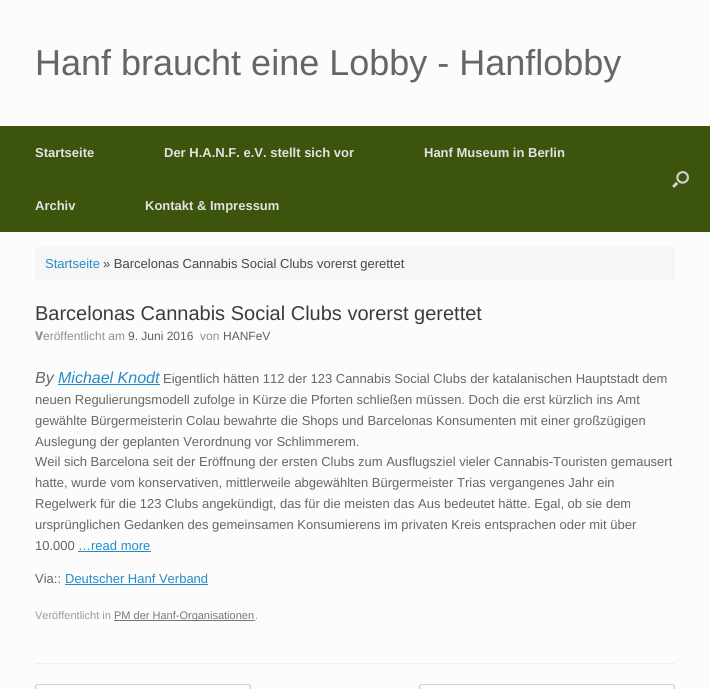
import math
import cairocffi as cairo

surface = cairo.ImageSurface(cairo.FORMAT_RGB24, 710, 689)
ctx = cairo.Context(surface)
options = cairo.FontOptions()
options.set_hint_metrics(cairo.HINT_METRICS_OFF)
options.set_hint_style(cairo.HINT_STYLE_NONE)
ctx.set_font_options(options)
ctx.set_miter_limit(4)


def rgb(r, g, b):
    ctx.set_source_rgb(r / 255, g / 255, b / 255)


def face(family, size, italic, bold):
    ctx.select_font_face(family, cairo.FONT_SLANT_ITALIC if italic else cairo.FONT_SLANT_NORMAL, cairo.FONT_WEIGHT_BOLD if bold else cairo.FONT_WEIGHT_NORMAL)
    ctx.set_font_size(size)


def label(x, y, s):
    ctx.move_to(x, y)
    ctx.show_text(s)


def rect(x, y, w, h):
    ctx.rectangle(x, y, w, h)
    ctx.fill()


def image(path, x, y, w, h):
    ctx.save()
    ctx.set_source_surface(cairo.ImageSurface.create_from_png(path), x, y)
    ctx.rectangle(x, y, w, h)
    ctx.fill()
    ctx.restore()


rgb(252, 252, 252)
ctx.paint()
face('Liberation Sans', 36, 0, 0)
rgb(102, 102, 102)
label(35, 75, 'Hanf braucht eine Lobby - Hanflobby')
rgb(61, 84, 12)
rect(0, 126, 710, 106)
face('Liberation Sans', 13, 0, 1)
rgb(226, 226, 226)
label(35, 157, 'Startseite')
label(164, 157, 'Der H.A.N.F. e.V. stellt sich vor')
label(424, 157, 'Hanf Museum in Berlin')
label(35, 210, 'Archiv')
label(145, 210, 'Kontakt & Impressum')
image('image0.png', 672, 171, 17, 17)
rgb(246, 246, 246)
rect(35, 247, 640, 33)
face('Liberation Sans', 13, 0, 0)
rgb(36, 140, 200)
label(45, 268, 'Startseite')
rgb(71, 71, 71)
label(103, 268, '» Barcelonas Cannabis Social Clubs vorerst gerettet')
rgb(238, 238, 238)
rect(35, 663, 640, 1)
face('Liberation Sans', 20, 0, 0)
rgb(59, 59, 59)
label(35, 320, 'Barcelonas Cannabis Social Clubs vorerst gerettet')
face('Noto Sans ExtraBold', 12, 0, 0)
rgb(143, 143, 143)
label(35, 340, 'V')
face('Liberation Sans', 12, 0, 0)
label(43, 340, 'eröffentlicht am')
rgb(94, 94, 94)
label(128, 340, '9. Juni 2016')
rgb(143, 143, 143)
label(200, 340, 'von')
rgb(94, 94, 94)
label(223, 340, 'HANFeV')
face('Liberation Sans', 16, 1, 0)
rgb(102, 102, 102)
label(35, 383, 'By')
rgb(36, 140, 200)
rect(58, 384, 102, 1)
label(58, 383, 'Michael Knodt')
face('Liberation Sans', 13, 0, 0)
rgb(102, 102, 102)
label(163, 383, 'Eigentlich hätten 112 der 123 Cannabis Social Clubs der katalanischen Hauptstadt dem')
label(35, 404, 'neuen Regulierungsmodell zufolge in Kürze die Pforten schließen müssen. Doch die erst kürzlich ins Amt')
label(35, 425, 'gewählte Bürgermeisterin Colau bewahrte die Shops und Barcelonas Konsumenten mit einer großzügigen')
label(35, 446, 'Auslegung der geplanten Verordnung vor Schlimmerem.')
label(35, 466, 'Weil sich Barcelona seit der Eröffnung der ersten Clubs zum Ausflugsziel vieler Cannabis-Touristen gemausert')
label(35, 487, 'hatte, wurde vom konservativen, mittlerweile abgewählten Bürgermeister Trias vergangenes Jahr ein')
label(35, 508, 'Regelwerk für die 123 Clubs angekündigt, das für die meisten das Aus bedeutet hätte. Egal, ob sie dem')
label(35, 529, 'ursprünglichen Gedanken des gemeinsamen Konsumierens im privaten Kreis entsprachen oder mit über')
label(35, 550, '10.000')
rgb(36, 140, 200)
label(78, 550, '…read more')
rect(78, 551, 73, 1)
rgb(102, 102, 102)
label(35, 583, 'Via::')
rgb(36, 140, 200)
label(65, 583, 'Deutscher Hanf Verband')
rect(65, 584, 143, 1)
face('Liberation Sans', 11, 0, 0)
rgb(153, 153, 153)
label(35, 619, 'Veröffentlicht in')
rgb(119, 119, 119)
rect(114, 620, 141, 1)
label(114, 619, 'PM der Hanf-Organisationen')
rgb(153, 153, 153)
label(255, 619, '.')
ctx.new_path()
ctx.move_to(36, 685)
ctx.line_to(38, 684.5)
ctx.line_to(249, 684.5)
ctx.line_to(250, 685)
rgb(210, 210, 210)
ctx.set_line_width(1)
ctx.stroke()
ctx.new_path()
ctx.move_to(250, 685)
ctx.curve_to(250, 685.5, 250.5, 686.5, 250.5, 687)
ctx.line_to(250.5, 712)
ctx.curve_to(250.5, 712.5, 250, 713.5, 250, 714)
rgb(195, 195, 195)
ctx.stroke()
ctx.new_path()
ctx.move_to(36, 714)
ctx.curve_to(36, 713.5, 35.5, 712.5, 35.5, 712)
ctx.line_to(35.5, 687)
ctx.curve_to(35.5, 686.5, 36, 685.5, 36, 685)
ctx.stroke()
ctx.new_path()
ctx.move_to(420, 685)
ctx.line_to(422, 684.5)
ctx.line_to(672, 684.5)
ctx.line_to(674, 685)
rgb(210, 210, 210)
ctx.stroke()
ctx.new_path()
ctx.move_to(674, 685)
ctx.curve_to(674, 685.5, 674.5, 686.5, 674.5, 687)
ctx.line_to(674.5, 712)
ctx.curve_to(674.5, 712.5, 674, 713.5, 674, 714)
rgb(195, 195, 195)
ctx.stroke()
ctx.new_path()
ctx.move_to(420, 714)
ctx.curve_to(420, 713.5, 419.5, 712.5, 419.5, 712)
ctx.line_to(419.5, 687)
ctx.curve_to(419.5, 686.5, 420, 685.5, 420, 685)
ctx.stroke()
surface.write_to_png('render.png')
